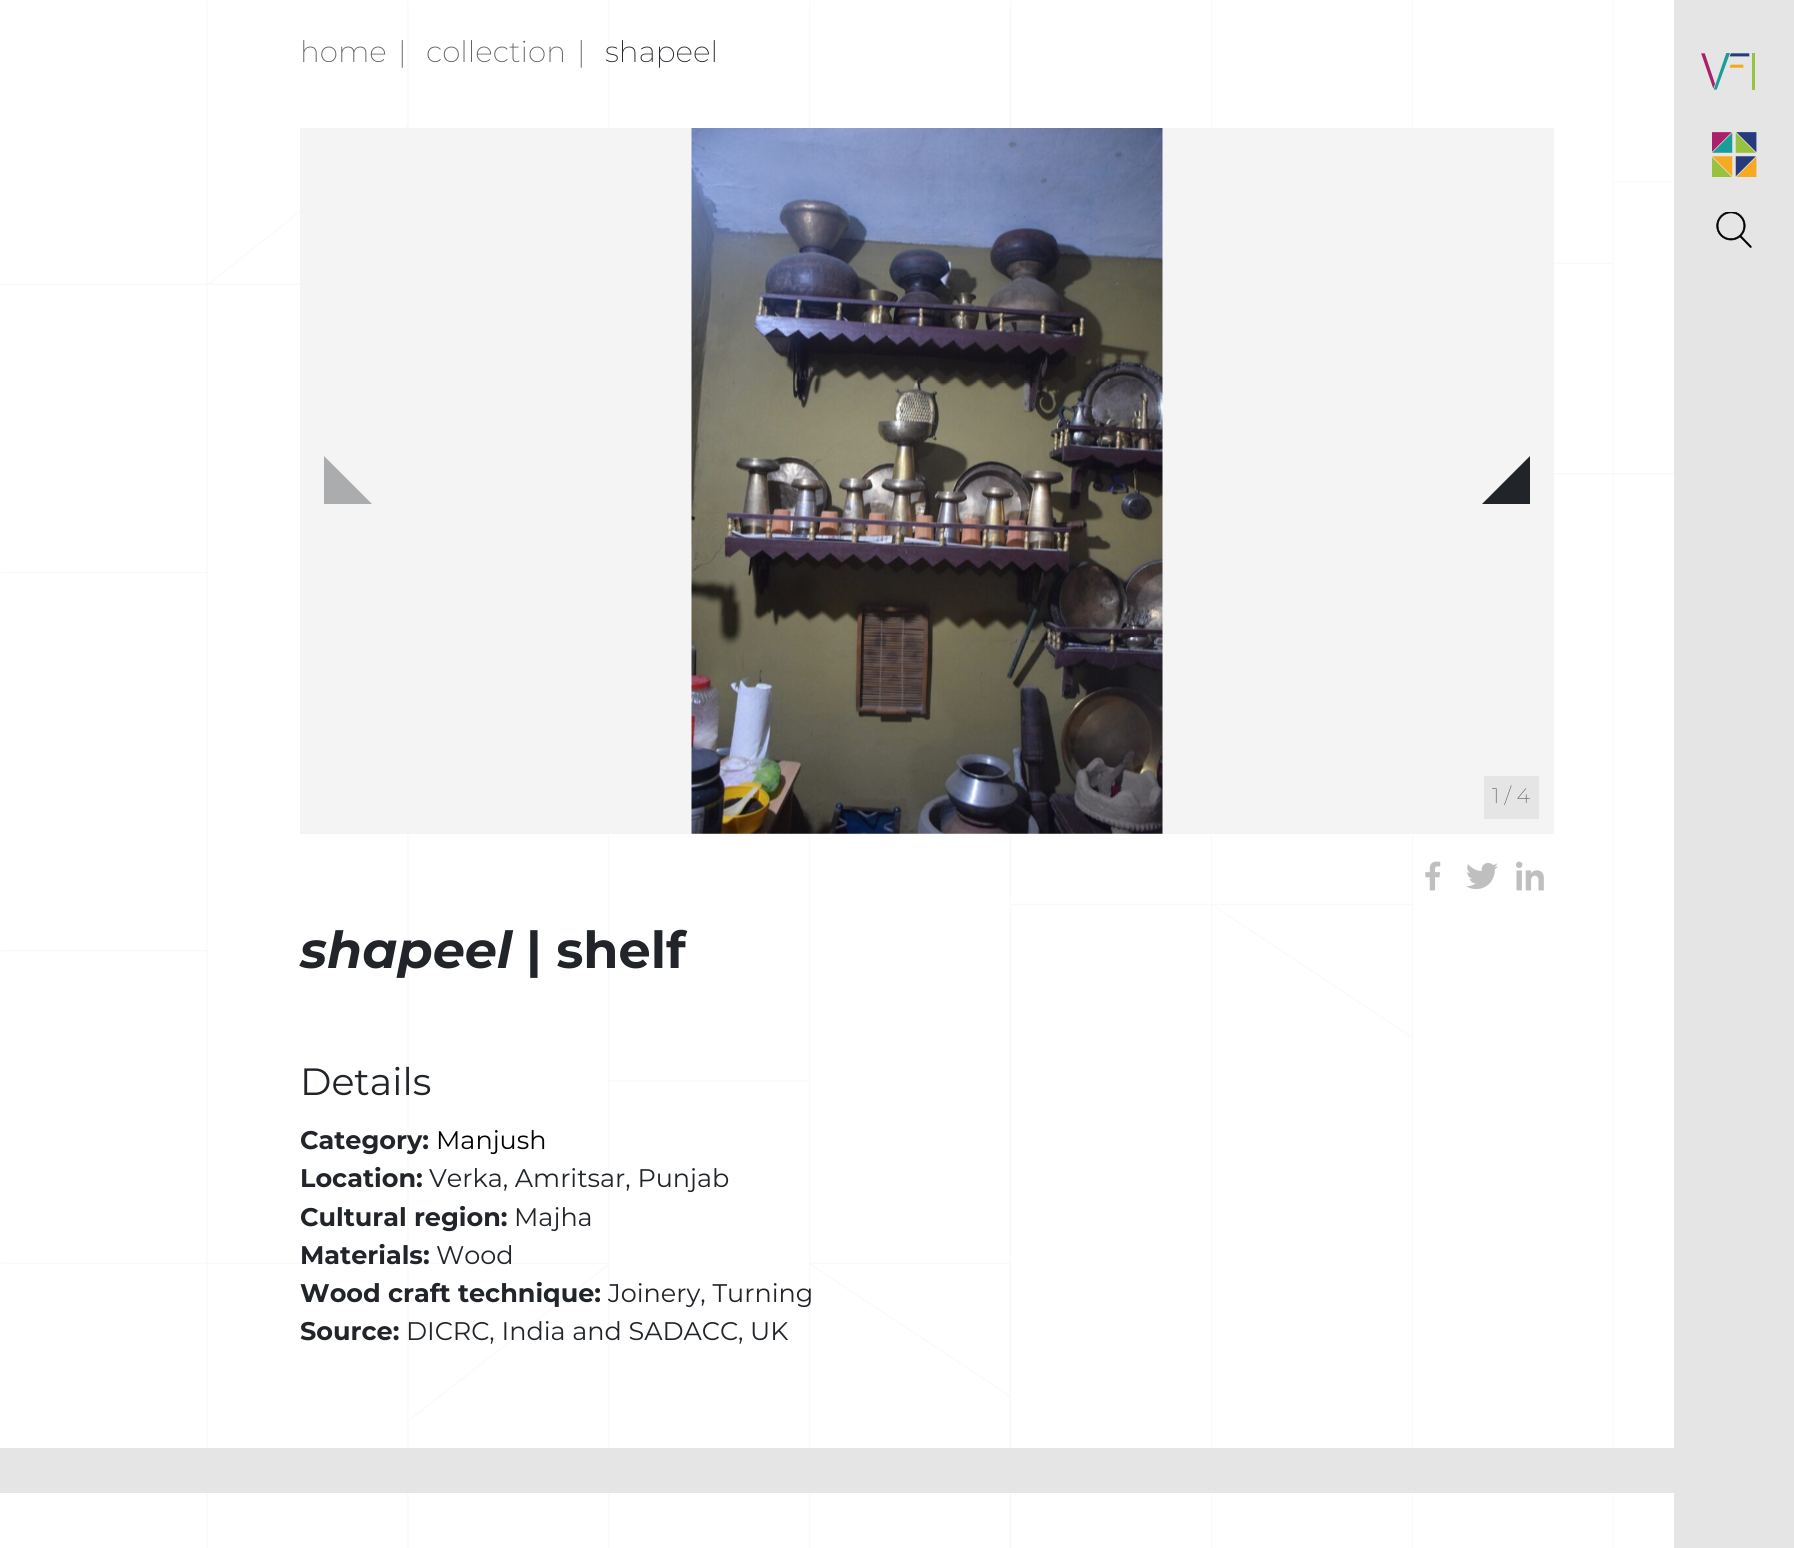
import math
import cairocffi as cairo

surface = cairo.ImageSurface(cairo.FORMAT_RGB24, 1794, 1548)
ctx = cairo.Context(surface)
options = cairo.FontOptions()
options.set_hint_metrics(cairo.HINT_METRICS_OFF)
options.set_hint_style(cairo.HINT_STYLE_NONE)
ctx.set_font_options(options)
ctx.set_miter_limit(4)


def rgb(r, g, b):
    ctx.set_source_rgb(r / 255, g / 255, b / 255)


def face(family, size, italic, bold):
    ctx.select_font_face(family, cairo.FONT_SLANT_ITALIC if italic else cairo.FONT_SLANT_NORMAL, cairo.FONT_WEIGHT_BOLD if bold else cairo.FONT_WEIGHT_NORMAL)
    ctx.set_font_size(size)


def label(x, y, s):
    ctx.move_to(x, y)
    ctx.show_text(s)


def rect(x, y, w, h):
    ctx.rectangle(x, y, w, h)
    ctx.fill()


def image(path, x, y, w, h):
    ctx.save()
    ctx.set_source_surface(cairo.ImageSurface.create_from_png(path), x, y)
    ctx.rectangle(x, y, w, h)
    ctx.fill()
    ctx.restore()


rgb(255, 255, 255)
ctx.paint()
image('image0.png', 0, 1, 1674, 1547)
face('Montserrat ExtraLight', 29.5, 0, 0)
rgb(96, 96, 96)
label(300, 62, 'home')
label(398, 62, '|')
label(426, 62, 'collection')
label(577, 62, '|')
rgb(33, 37, 41)
label(605, 62, 'shapeel')
rgb(244, 244, 244)
rect(300, 128, 1254, 706)
image('image1.png', 691, 128, 472, 706)
rgb(170, 172, 173)
ctx.new_path()
ctx.move_to(324, 504)
ctx.line_to(324, 456)
ctx.line_to(372, 504)
ctx.close_path()
ctx.fill()
rgb(33, 37, 41)
ctx.new_path()
ctx.move_to(1530, 504)
ctx.line_to(1482, 504)
ctx.line_to(1530, 456)
ctx.close_path()
ctx.fill()
rgb(229, 229, 229)
rect(1484, 776, 55, 43)
face('Montserrat ExtraLight', 21, 0, 0)
rgb(102, 98, 102)
label(1492, 803, '1 / 4')
image('image2.png', 1425, 861, 16, 30)
image('image3.png', 1466, 863, 32, 26)
image('image4.png', 1516, 861, 28, 30)
face('Montserrat', 51, 1, 1)
rgb(33, 37, 41)
label(300, 968, 'shapeel')
face('Montserrat', 51, 0, 1)
label(526, 968, '| shelf')
face('Montserrat', 38, 0, 0)
label(300, 1095, 'Details')
face('Montserrat', 25.5, 0, 1)
label(300, 1149, 'Category:')
face('Montserrat', 25.5, 0, 0)
rgb(0, 0, 0)
label(436, 1149, 'Manjush')
face('Montserrat', 25.5, 0, 1)
rgb(33, 37, 41)
label(300, 1187, 'Location:')
face('Montserrat', 25.5, 0, 0)
label(429, 1187, 'Verka, Amritsar, Punjab')
face('Montserrat', 25.5, 0, 1)
label(300, 1226, 'Cultural region:')
face('Montserrat', 25.5, 0, 0)
label(514, 1226, 'Majha')
face('Montserrat', 25.5, 0, 1)
label(300, 1264, 'Materials:')
face('Montserrat', 25.5, 0, 0)
label(436, 1264, 'Wood')
face('Montserrat', 25.5, 0, 1)
label(300, 1302, 'Wood craft technique:')
face('Montserrat', 25.5, 0, 0)
label(608, 1302, 'Joinery, Turning')
face('Montserrat', 25.5, 0, 1)
label(300, 1340, 'Source:')
face('Montserrat', 25.5, 0, 0)
label(406, 1340, 'DICRC, India and SADACC, UK')
rgb(229, 229, 229)
rect(1674, 0, 120, 1548)
image('image5.png', 1701, 53, 54, 37)
image('image6.png', 1712, 132, 45, 45)
image('image7.png', 1716, 212, 36, 36)
rect(0, 1448, 1674, 45)
surface.write_to_png('render.png')
